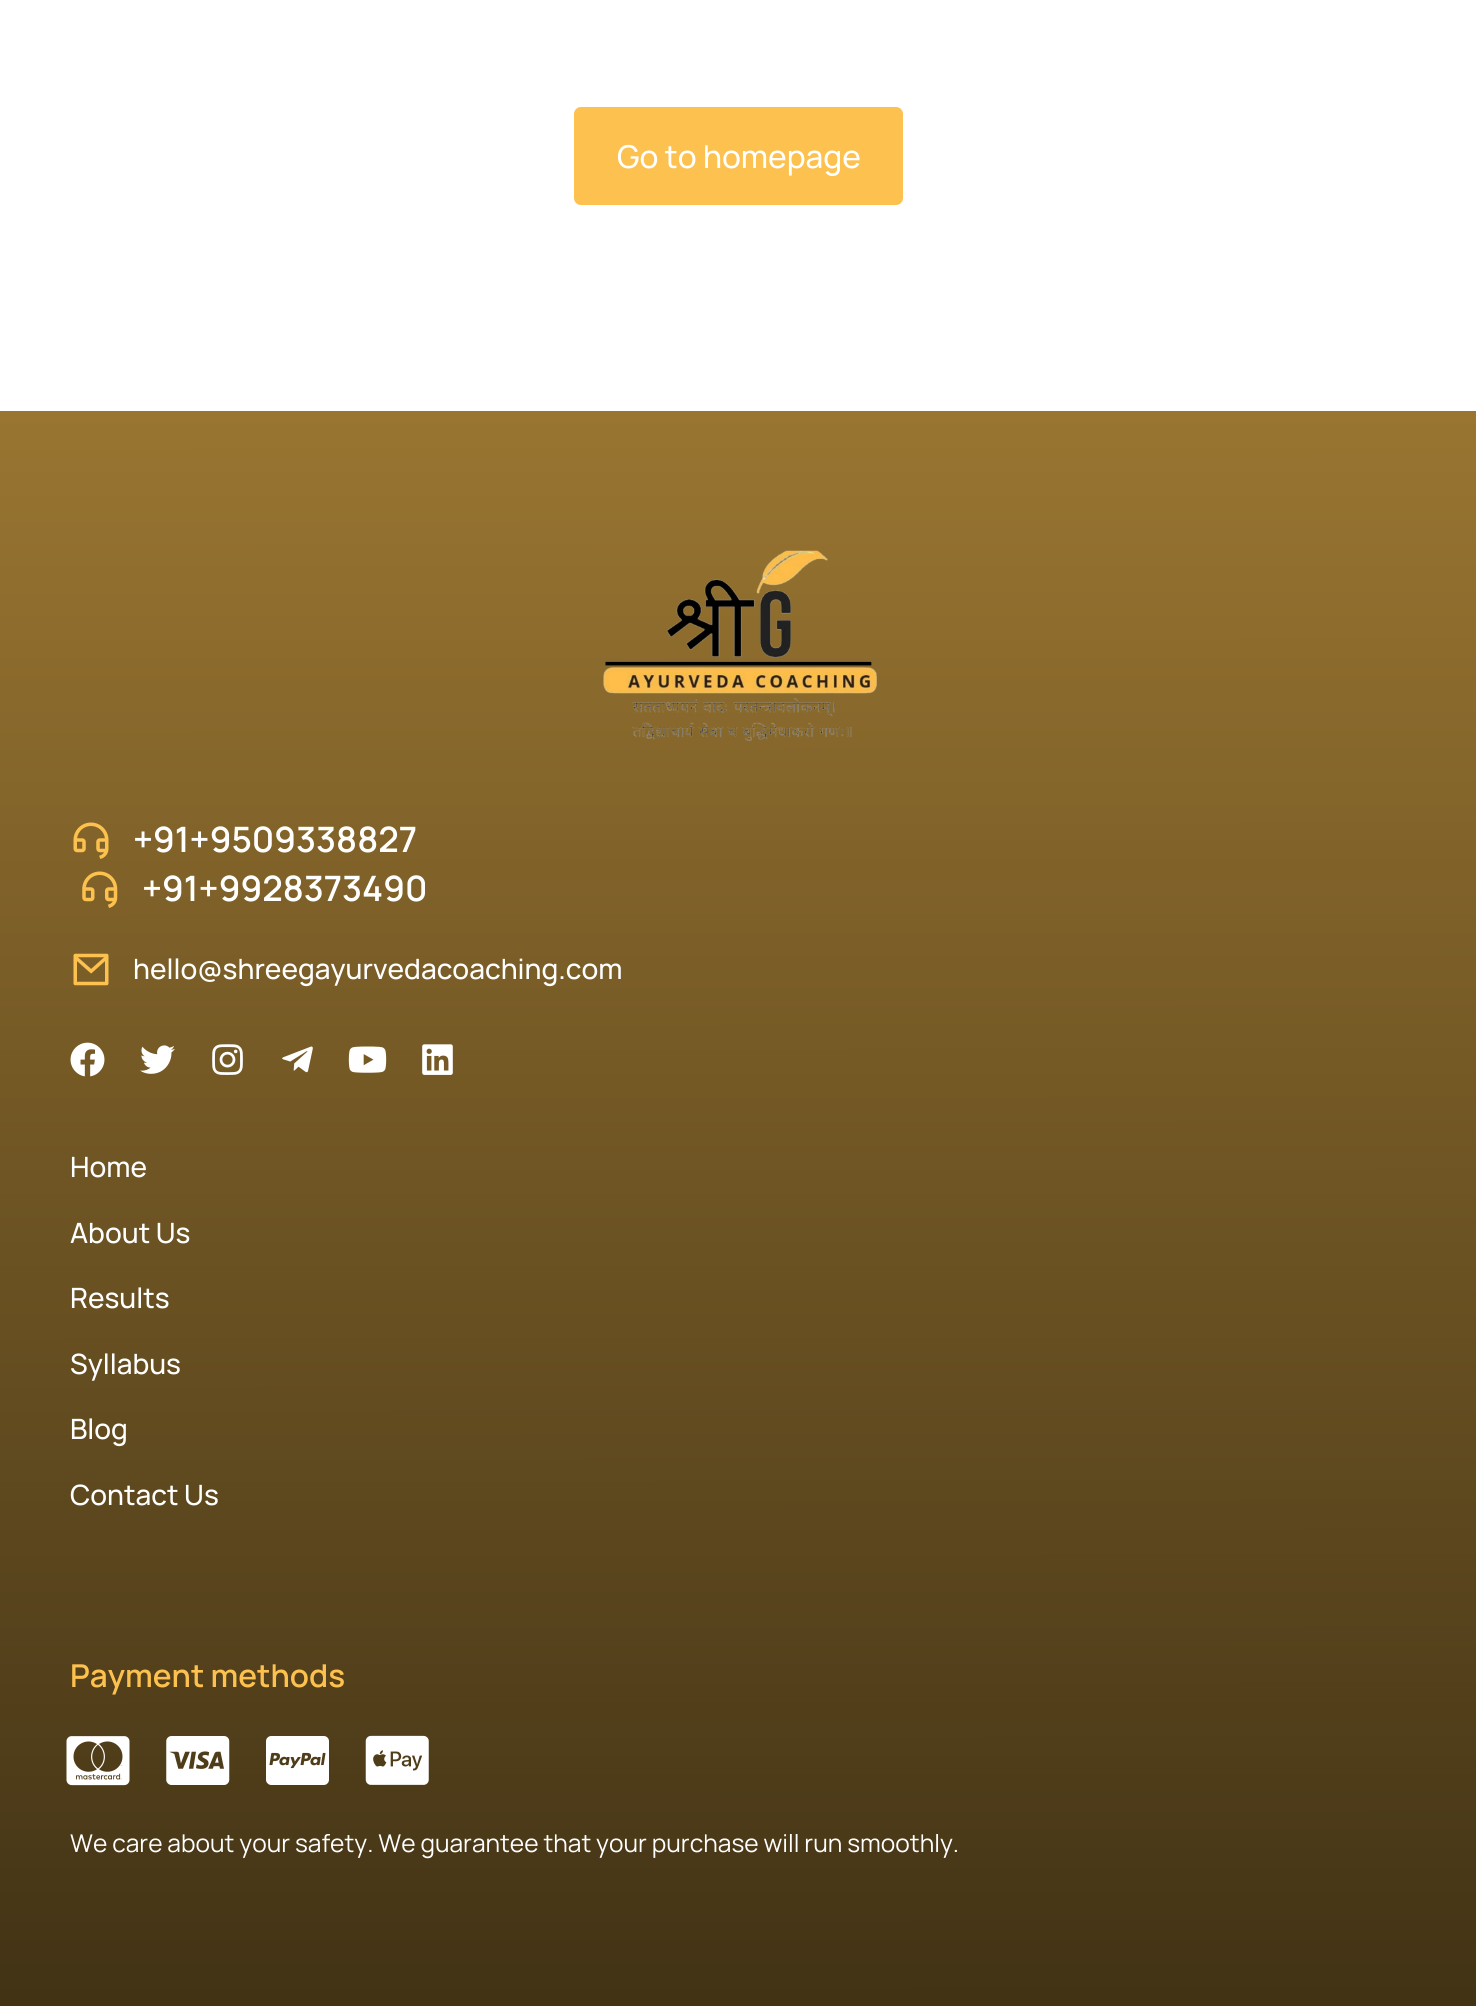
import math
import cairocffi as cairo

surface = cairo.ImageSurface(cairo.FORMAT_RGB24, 1476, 2006)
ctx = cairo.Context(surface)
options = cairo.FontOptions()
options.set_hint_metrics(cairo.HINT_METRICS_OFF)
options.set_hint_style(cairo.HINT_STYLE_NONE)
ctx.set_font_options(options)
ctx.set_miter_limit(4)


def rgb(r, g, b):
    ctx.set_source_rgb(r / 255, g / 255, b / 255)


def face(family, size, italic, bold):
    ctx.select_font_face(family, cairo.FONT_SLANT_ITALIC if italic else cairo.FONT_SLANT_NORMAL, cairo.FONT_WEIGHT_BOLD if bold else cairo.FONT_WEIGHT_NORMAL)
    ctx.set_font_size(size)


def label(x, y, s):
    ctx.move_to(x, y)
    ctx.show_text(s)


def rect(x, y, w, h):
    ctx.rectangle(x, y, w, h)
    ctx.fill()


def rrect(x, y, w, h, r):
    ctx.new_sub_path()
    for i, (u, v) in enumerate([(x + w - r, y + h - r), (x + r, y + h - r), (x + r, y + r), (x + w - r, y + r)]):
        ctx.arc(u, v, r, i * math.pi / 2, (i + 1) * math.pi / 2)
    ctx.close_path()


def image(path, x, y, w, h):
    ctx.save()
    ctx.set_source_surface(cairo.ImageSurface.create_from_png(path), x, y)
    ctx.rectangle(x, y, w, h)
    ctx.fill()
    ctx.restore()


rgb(255, 255, 255)
ctx.paint()
rgb(252, 193, 78)
rrect(574, 107, 329, 98, 7)
ctx.fill()
face('Manrope Medium', 31.5, 0, 0)
rgb(255, 255, 255)
label(617, 168, 'Go to homepage')
gradient = cairo.LinearGradient(738, 411, 739, 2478)
gradient.add_color_stop_rgba(0, 0.6, 0.459, 0.192, 1)
gradient.add_color_stop_rgba(1, 0.157, 0.122, 0.051, 1)
ctx.set_source(gradient)
rect(0, 411, 1476, 1595)
image('image0.png', 603, 550, 274, 191)
image('image1.png', 73, 822, 36, 37)
face('Manrope SemiBold', 35, 0, 0)
rgb(255, 255, 255)
label(133, 852, '+91+9509338827')
image('image2.png', 82, 871, 36, 37)
label(142, 901, '+91+9928373490')
image('image3.png', 73, 953, 36, 33)
face('Manrope Medium', 28, 0, 0)
label(133, 979, 'hello@shreegayurvedacoaching.com')
image('image4.png', 70, 1042, 35, 35)
image('image5.png', 140, 1045, 35, 29)
image('image6.png', 212, 1044, 31, 31)
image('image7.png', 282, 1046, 31, 27)
image('image8.png', 348, 1046, 39, 27)
image('image9.png', 422, 1044, 31, 31)
label(70, 1177, 'Home')
label(70, 1243, 'About Us')
label(70, 1308, 'Results')
label(70, 1374, 'Syllabus')
label(70, 1439, 'Blog')
label(70, 1505, 'Contact Us')
face('Manrope SemiBold', 31.5, 0, 0)
rgb(252, 193, 78)
label(70, 1687, 'Payment methods')
image('image10.png', 66, 1736, 64, 50)
image('image11.png', 166, 1736, 64, 49)
image('image12.png', 266, 1736, 63, 49)
image('image13.png', 365, 1735, 64, 50)
face('Manrope', 24.5, 0, 0)
rgb(255, 255, 255)
label(70, 1852, 'We care about your safety. We guarantee that your purchase will run smoothly.')
surface.write_to_png('render.png')
